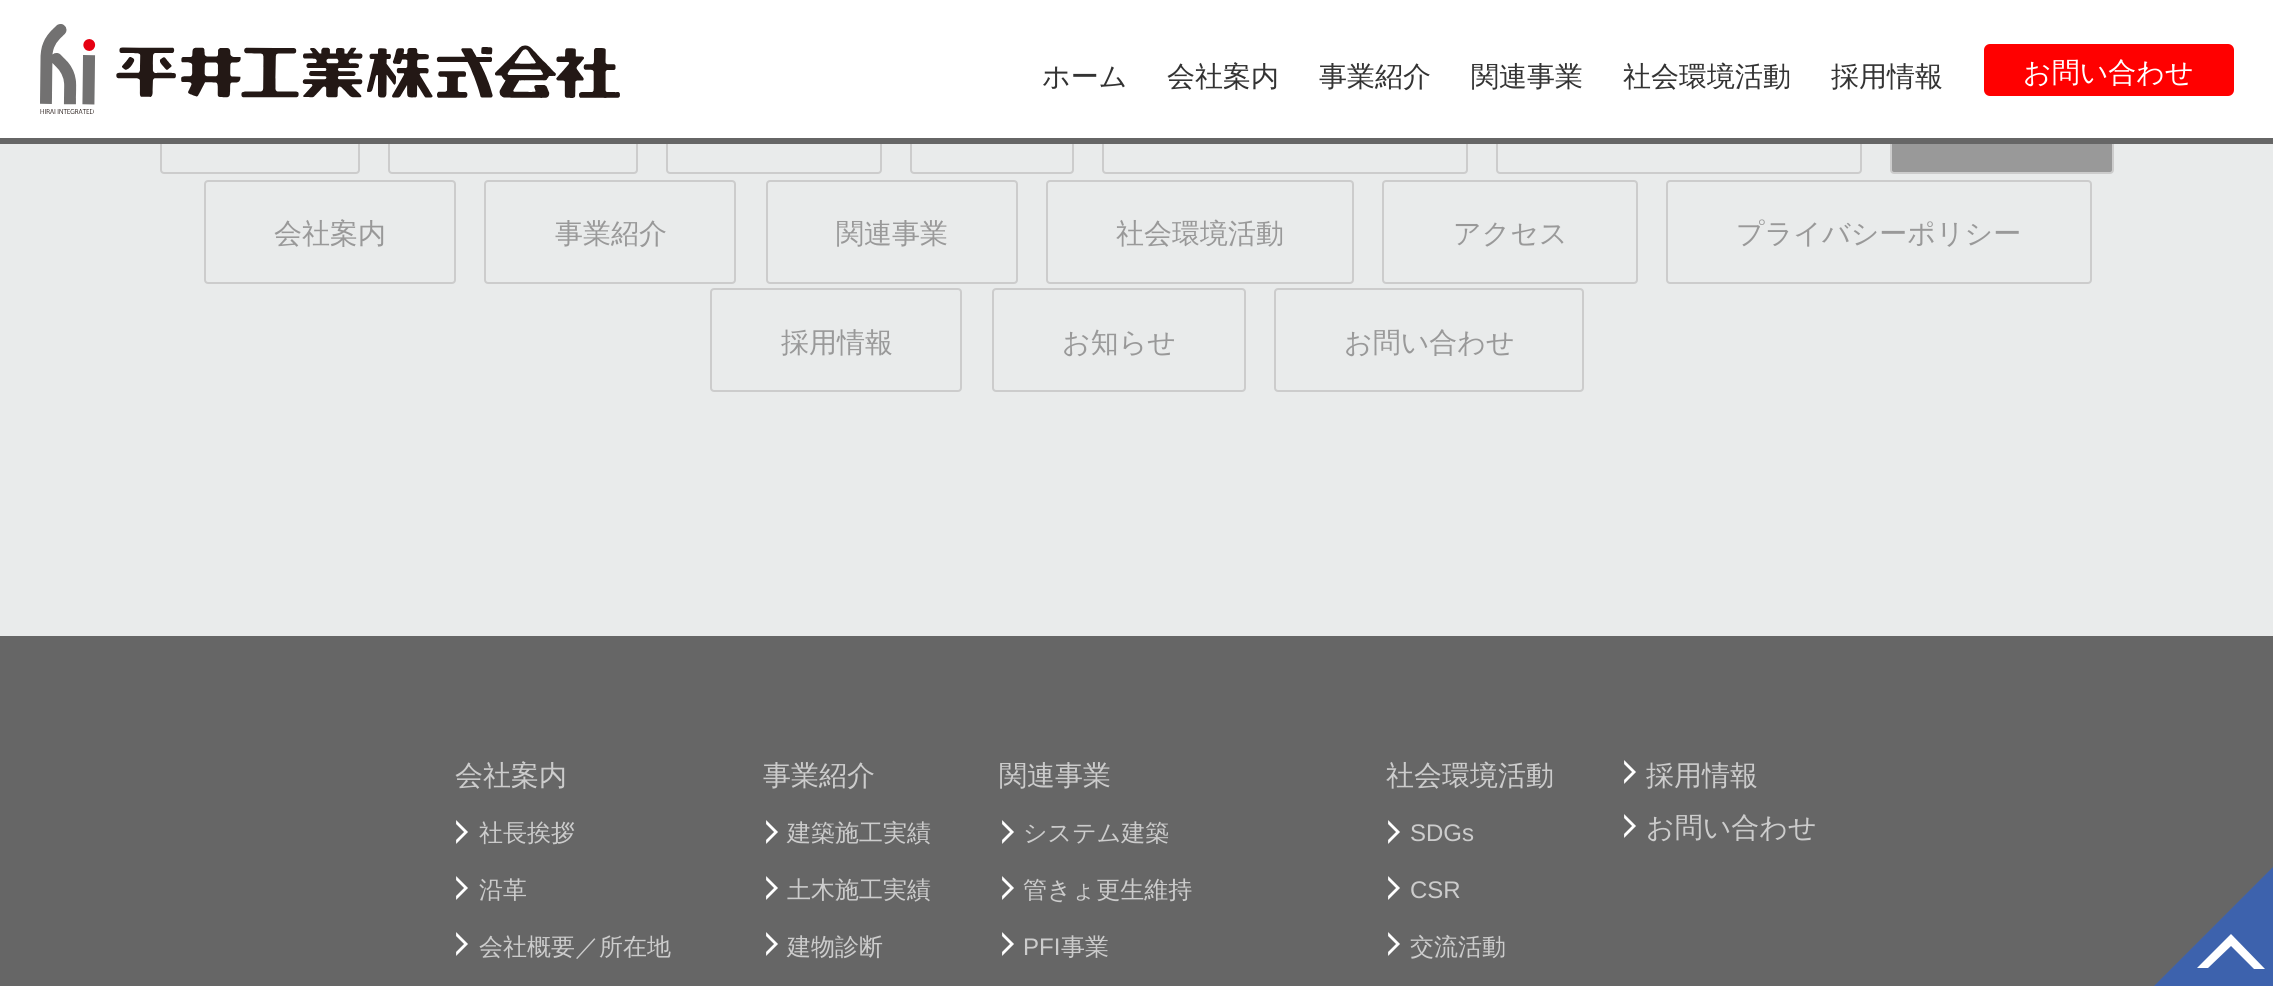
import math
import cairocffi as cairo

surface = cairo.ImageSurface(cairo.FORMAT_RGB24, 2273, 986)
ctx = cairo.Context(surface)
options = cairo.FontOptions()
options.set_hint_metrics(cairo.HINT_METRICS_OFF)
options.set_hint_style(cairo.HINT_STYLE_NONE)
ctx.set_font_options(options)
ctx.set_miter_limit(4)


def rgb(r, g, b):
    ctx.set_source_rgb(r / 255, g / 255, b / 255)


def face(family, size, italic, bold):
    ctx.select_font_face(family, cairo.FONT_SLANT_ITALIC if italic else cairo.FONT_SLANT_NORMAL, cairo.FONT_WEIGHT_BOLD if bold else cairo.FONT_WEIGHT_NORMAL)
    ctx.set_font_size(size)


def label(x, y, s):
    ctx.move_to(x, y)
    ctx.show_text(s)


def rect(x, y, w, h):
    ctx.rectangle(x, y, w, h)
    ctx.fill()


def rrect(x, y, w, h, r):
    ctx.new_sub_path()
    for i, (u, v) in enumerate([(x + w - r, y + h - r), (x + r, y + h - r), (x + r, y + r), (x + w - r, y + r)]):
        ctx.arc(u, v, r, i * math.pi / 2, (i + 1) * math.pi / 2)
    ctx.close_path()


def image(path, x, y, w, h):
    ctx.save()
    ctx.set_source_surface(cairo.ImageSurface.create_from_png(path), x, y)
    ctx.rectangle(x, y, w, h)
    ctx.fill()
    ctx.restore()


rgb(233, 235, 235)
ctx.paint()
rrect(161, 71, 198, 102, 3)
rgb(204, 204, 204)
ctx.stroke()
rrect(389, 71, 248, 102, 3)
ctx.stroke()
rrect(667, 71, 214, 102, 3)
ctx.stroke()
rrect(911, 71, 162, 102, 3)
ctx.stroke()
rrect(1103, 71, 364, 102, 3)
ctx.stroke()
rrect(1497, 71, 364, 102, 3)
ctx.stroke()
rgb(153, 153, 153)
rrect(1891, 71, 222, 102, 3)
ctx.fill_preserve()
rgb(204, 204, 204)
ctx.stroke()
rgb(255, 255, 255)
rect(0, 0, 2273, 138)
rgb(102, 102, 102)
rect(0, 138, 2273, 6)
image('image0.png', 40, 24, 580, 90)
face('WenQuanYi Zen Hei Medium', 28, 0, 0)
rgb(51, 51, 51)
label(1042, 86, 'ホーム')
label(1167, 86, '会社案内')
label(1319, 86, '事業紹介')
label(1471, 86, '関連事業')
label(1623, 86, '社会環境活動')
label(1831, 86, '採用情報')
rgb(255, 0, 0)
rrect(1984, 44, 250, 52, 6)
ctx.fill()
rgb(255, 255, 255)
label(2023, 82, 'お問い合わせ')
rrect(205, 181, 250, 102, 3)
rgb(204, 204, 204)
ctx.stroke()
rgb(153, 153, 153)
label(274, 243, '会社案内')
rrect(485, 181, 250, 102, 3)
rgb(204, 204, 204)
ctx.stroke()
rgb(153, 153, 153)
label(555, 243, '事業紹介')
rrect(767, 181, 250, 102, 3)
rgb(204, 204, 204)
ctx.stroke()
rgb(153, 153, 153)
label(836, 243, '関連事業')
rrect(1047, 181, 306, 102, 3)
rgb(204, 204, 204)
ctx.stroke()
rgb(153, 153, 153)
label(1116, 243, '社会環境活動')
rrect(1383, 181, 254, 102, 3)
rgb(204, 204, 204)
ctx.stroke()
rgb(153, 153, 153)
label(1453, 243, 'アクセス')
rrect(1667, 181, 424, 102, 3)
rgb(204, 204, 204)
ctx.stroke()
rgb(153, 153, 153)
label(1736, 243, 'プライバシーポリシー')
rrect(711, 289, 250, 102, 3)
rgb(204, 204, 204)
ctx.stroke()
rgb(153, 153, 153)
label(781, 352, '採用情報')
rrect(993, 289, 252, 102, 3)
rgb(204, 204, 204)
ctx.stroke()
rgb(153, 153, 153)
label(1062, 352, 'お知らせ')
rrect(1275, 289, 308, 102, 3)
rgb(204, 204, 204)
ctx.stroke()
rgb(153, 153, 153)
label(1344, 352, 'お問い合わせ')
rgb(102, 102, 102)
rect(0, 636, 2273, 350)
rgb(204, 204, 204)
label(455, 785, '会社案内')
image('image1.png', 456, 820, 12, 24)
face('WenQuanYi Zen Hei Medium', 24, 0, 0)
label(479, 841, '社長挨拶')
image('image1.png', 456, 876, 12, 24)
label(479, 898, '沿革')
image('image1.png', 456, 932, 12, 24)
label(479, 955, '会社概要／所在地')
face('WenQuanYi Zen Hei Medium', 28, 0, 0)
label(763, 785, '事業紹介')
image('image1.png', 766, 820, 12, 24)
face('WenQuanYi Zen Hei Medium', 24, 0, 0)
label(787, 841, '建築施工実績')
image('image1.png', 766, 876, 12, 24)
label(787, 898, '土木施工実績')
image('image1.png', 766, 932, 12, 24)
label(787, 955, '建物診断')
face('WenQuanYi Zen Hei Medium', 28, 0, 0)
label(999, 785, '関連事業')
image('image1.png', 1002, 820, 12, 24)
face('WenQuanYi Zen Hei Medium', 24, 0, 0)
label(1023, 841, 'システム建築')
image('image1.png', 1002, 876, 12, 24)
label(1023, 898, '管きょ更生維持')
image('image1.png', 1002, 932, 12, 24)
face('Liberation Sans', 24, 0, 0)
label(1023, 955, 'PFI')
face('WenQuanYi Zen Hei Medium', 24, 0, 0)
label(1061, 955, '事業')
face('WenQuanYi Zen Hei Medium', 28, 0, 0)
label(1386, 785, '社会環境活動')
image('image1.png', 1388, 820, 12, 24)
face('Liberation Sans', 24, 0, 0)
label(1410, 841, 'SDGs')
image('image1.png', 1388, 876, 12, 24)
label(1410, 898, 'CSR')
image('image1.png', 1388, 932, 12, 24)
face('WenQuanYi Zen Hei Medium', 24, 0, 0)
label(1410, 955, '交流活動')
image('image1.png', 1624, 760, 12, 24)
face('WenQuanYi Zen Hei Medium', 28, 0, 0)
label(1646, 785, '採用情報')
image('image1.png', 1624, 814, 12, 24)
label(1646, 837, 'お問い合わせ')
rgb(61, 98, 173)
ctx.new_path()
ctx.move_to(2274, 866)
ctx.line_to(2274, 986)
ctx.line_to(2154, 986)
ctx.close_path()
ctx.fill()
rgb(255, 255, 255)
ctx.new_path()
ctx.move_to(2265, 969)
ctx.line_to(2231, 934)
ctx.line_to(2197, 968)
ctx.line_to(2208, 968)
ctx.line_to(2231, 946)
ctx.line_to(2254, 969)
ctx.close_path()
ctx.move_to(2265, 969)
ctx.line_to(2265, 969)
ctx.close_path()
ctx.move_to(2197, 968)
ctx.line_to(2197, 969)
ctx.close_path()
ctx.fill()
surface.write_to_png('render.png')
